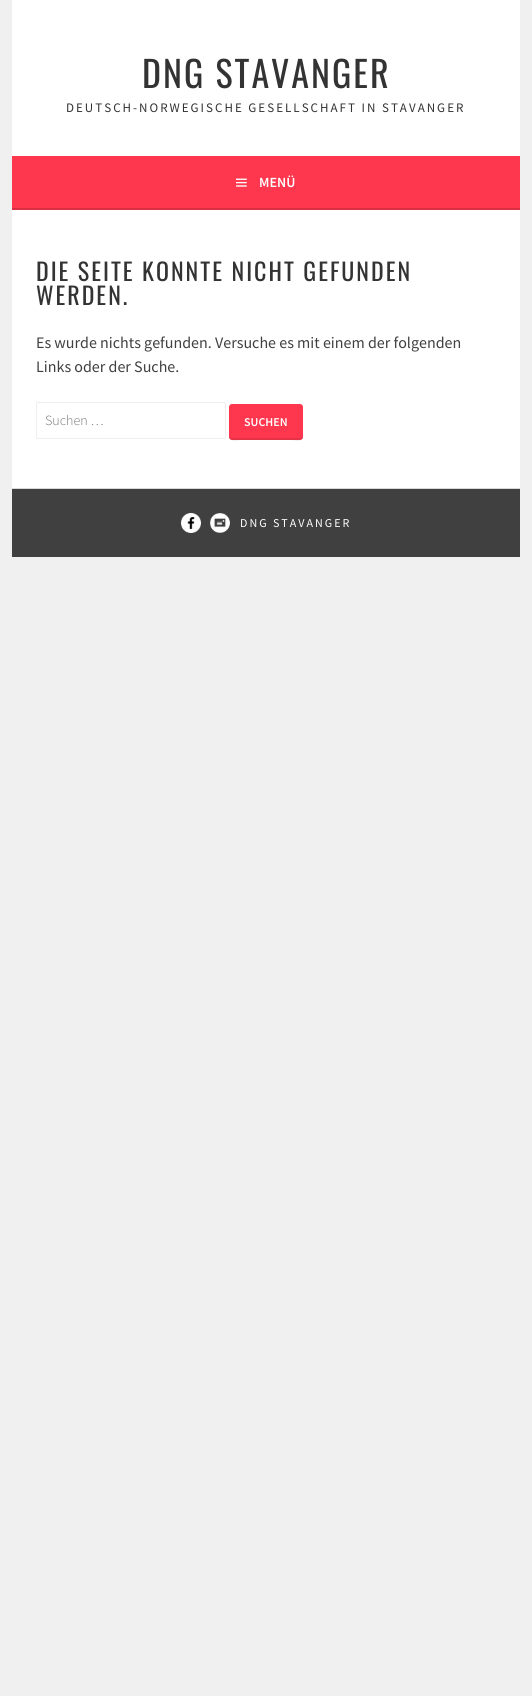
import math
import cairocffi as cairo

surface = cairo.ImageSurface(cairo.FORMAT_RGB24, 532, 1696)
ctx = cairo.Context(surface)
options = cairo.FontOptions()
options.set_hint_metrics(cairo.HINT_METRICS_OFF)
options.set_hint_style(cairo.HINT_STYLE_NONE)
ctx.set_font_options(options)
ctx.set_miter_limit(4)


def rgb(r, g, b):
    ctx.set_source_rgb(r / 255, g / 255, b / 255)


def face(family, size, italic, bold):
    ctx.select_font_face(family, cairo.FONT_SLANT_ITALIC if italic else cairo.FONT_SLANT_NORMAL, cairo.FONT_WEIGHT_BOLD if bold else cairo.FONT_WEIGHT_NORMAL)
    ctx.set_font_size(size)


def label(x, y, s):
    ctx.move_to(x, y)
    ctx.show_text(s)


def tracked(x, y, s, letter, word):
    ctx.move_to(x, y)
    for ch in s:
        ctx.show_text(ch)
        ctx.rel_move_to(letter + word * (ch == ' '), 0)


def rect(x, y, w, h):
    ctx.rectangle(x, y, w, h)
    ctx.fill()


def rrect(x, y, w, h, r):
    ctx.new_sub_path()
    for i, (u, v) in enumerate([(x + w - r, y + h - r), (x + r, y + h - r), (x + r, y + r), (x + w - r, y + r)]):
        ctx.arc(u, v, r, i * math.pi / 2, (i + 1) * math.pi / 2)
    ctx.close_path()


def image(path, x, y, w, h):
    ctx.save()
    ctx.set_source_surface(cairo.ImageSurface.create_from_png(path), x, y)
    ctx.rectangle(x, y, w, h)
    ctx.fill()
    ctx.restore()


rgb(240, 240, 240)
ctx.paint()
rgb(255, 255, 255)
rect(12, 0, 508, 156)
face('Oswald', 36, 0, 0)
rgb(51, 51, 51)
tracked(142, 88, 'DNG STAVANGER', 2, 0)
face('Source Sans Pro', 13, 0, 0)
tracked(66, 112, 'DEUTSCH-NORWEGISCHE GESELLSCHAFT IN STAVANGER', 2, 0)
rgb(255, 55, 78)
rect(12, 156, 508, 52)
rgb(217, 47, 66)
rect(12, 208, 508, 2)
image('image0.png', 236, 178, 11, 9)
face('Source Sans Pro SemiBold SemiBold', 14, 0, 0)
rgb(255, 255, 255)
label(259, 187, 'MENÜ')
rect(12, 210, 508, 278)
face('Oswald', 24, 0, 0)
rgb(51, 51, 51)
tracked(36, 281, 'DIE SEITE KONNTE NICHT GEFUNDEN', 2, 0)
tracked(36, 305, 'WERDEN.', 2, 0)
face('Source Sans Pro', 16, 0, 0)
rgb(64, 64, 64)
label(36, 348, 'Es wurde nichts gefunden. Versuche es mit einem der folgenden')
label(36, 372, 'Links oder der Suche.')
rrect(36.5, 402.5, 189, 36, 1.5)
rgb(238, 238, 238)
ctx.set_line_width(1)
ctx.stroke()
face('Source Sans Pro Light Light', 14, 0, 0)
rgb(117, 117, 117)
label(45, 425, 'Suchen …')
rgb(255, 55, 78)
rrect(229, 404, 74, 36, 3)
ctx.fill()
ctx.set_source_rgba(0, 0, 0, 0.1)
ctx.new_path()
ctx.move_to(229, 435)
ctx.curve_to(229, 443, 236, 440, 243, 440)
ctx.line_to(289, 440)
ctx.curve_to(296, 440, 303, 443, 303, 435)
ctx.curve_to(303, 437, 302, 438, 300, 438)
ctx.line_to(232, 438)
ctx.curve_to(230, 438, 229, 437, 229, 435)
ctx.close_path()
ctx.fill()
face('Source Sans Pro SemiBold SemiBold', 12, 0, 0)
rgb(255, 255, 255)
label(244, 426, 'SUCHEN')
rgb(64, 64, 64)
rect(12, 489, 508, 68)
rgb(217, 217, 217)
rect(12, 488, 508, 1)
image('image1.png', 181, 513, 20, 20)
image('image2.png', 210, 513, 20, 20)
face('Source Sans Pro', 12, 0, 0)
rgb(255, 255, 255)
tracked(240, 527, 'DNG STAVANGER', 2, 0)
surface.write_to_png('render.png')
